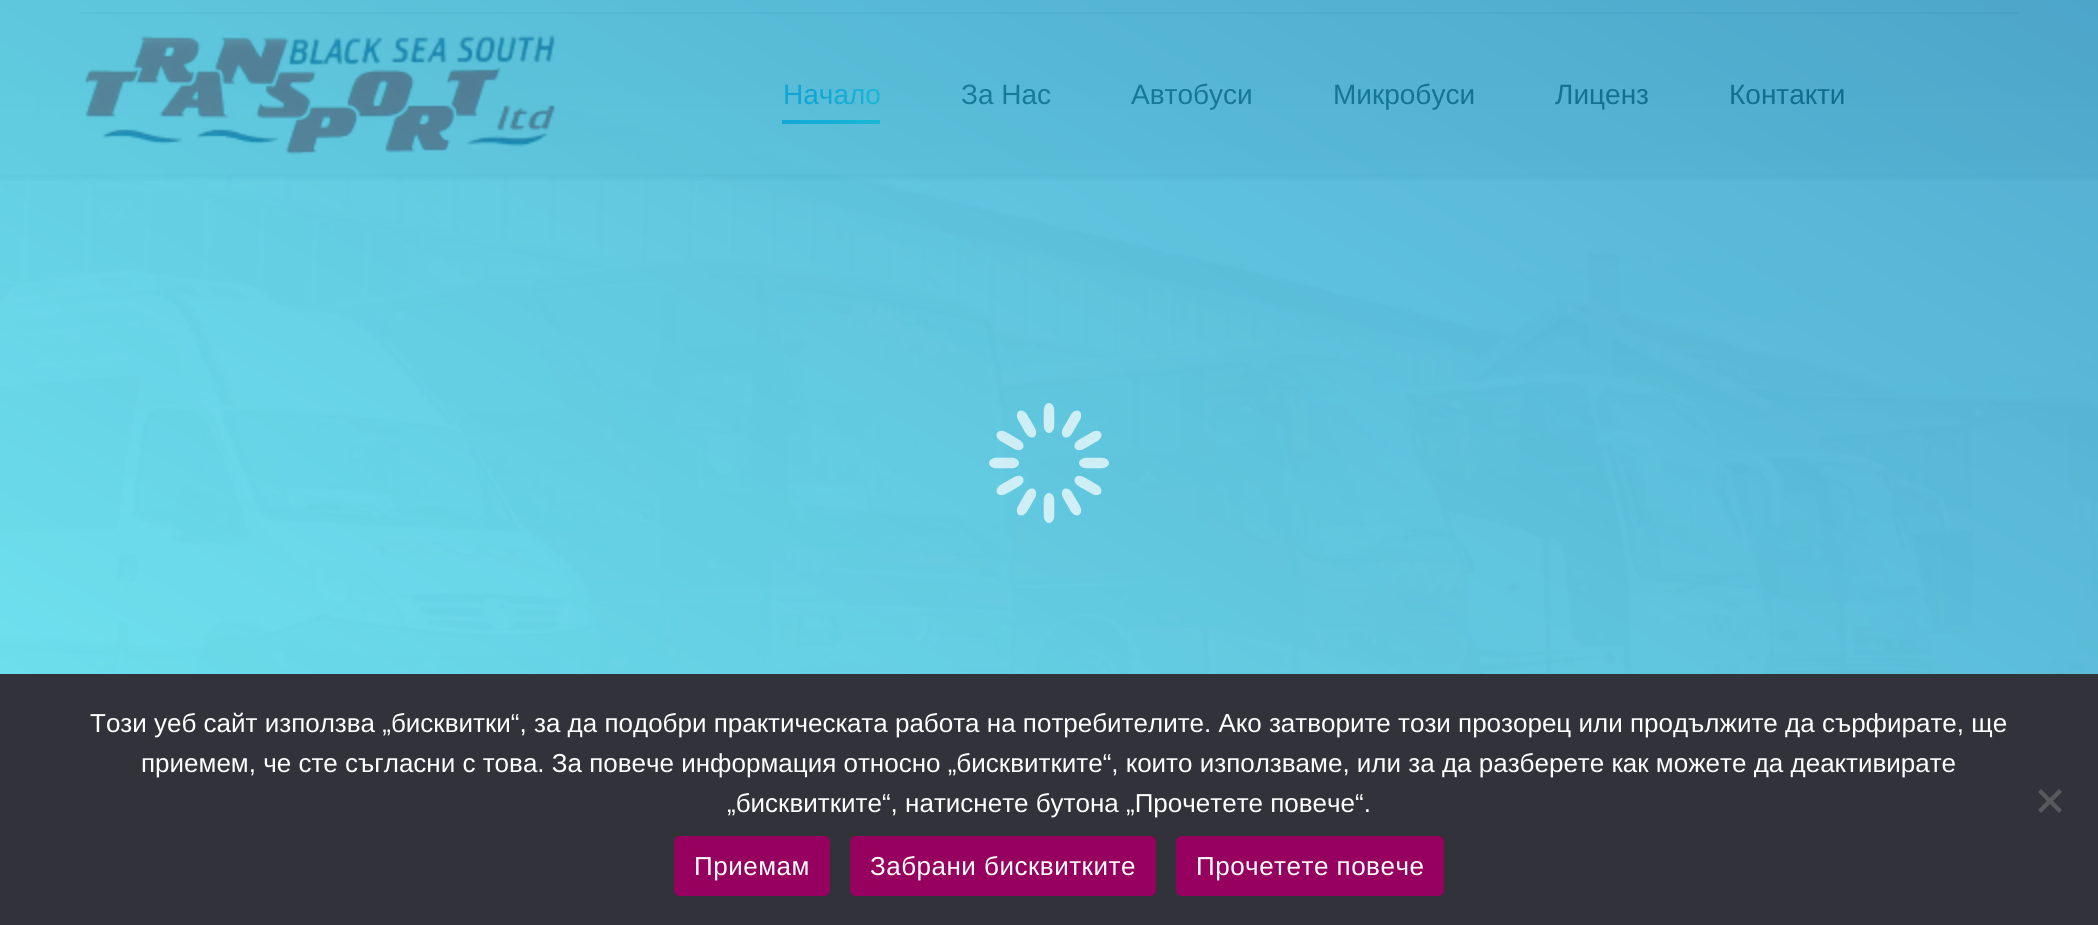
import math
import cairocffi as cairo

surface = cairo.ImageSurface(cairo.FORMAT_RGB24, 2098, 925)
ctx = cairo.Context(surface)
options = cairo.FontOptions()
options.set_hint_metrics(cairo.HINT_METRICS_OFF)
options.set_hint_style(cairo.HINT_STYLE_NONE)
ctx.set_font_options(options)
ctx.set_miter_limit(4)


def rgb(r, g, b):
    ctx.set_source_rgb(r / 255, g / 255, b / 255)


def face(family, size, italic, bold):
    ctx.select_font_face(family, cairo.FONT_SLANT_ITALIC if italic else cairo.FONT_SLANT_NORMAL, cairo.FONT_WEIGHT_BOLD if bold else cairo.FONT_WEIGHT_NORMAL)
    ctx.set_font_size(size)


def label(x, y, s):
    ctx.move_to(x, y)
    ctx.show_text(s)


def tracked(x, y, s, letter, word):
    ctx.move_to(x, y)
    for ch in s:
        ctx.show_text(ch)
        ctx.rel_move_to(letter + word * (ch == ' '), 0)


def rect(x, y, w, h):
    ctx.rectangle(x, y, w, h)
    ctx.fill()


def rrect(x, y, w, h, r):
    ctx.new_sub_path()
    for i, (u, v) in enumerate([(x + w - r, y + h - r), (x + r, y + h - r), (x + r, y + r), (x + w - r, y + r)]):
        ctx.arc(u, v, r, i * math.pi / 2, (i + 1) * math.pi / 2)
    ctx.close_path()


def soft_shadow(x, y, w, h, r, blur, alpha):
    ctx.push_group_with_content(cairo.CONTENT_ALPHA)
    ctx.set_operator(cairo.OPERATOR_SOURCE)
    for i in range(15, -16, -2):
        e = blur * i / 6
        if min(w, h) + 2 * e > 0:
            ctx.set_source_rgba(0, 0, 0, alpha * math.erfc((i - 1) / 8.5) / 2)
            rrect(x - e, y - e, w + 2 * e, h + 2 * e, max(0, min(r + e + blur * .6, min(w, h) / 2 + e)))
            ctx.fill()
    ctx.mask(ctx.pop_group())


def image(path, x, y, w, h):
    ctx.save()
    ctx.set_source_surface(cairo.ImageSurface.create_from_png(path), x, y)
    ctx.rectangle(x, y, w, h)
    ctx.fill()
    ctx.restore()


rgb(255, 255, 255)
ctx.paint()
image('image1.png', 0, 46, 2098, 628)
ctx.save()
ctx.rectangle(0, 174, 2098, 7)
ctx.clip()
rgb(0, 0, 0)
soft_shadow(0, 0, 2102, 178, 0, 4, 0.1)
ctx.restore()
gradient = cairo.LinearGradient(1049, 174, 1049, 0)
gradient.add_color_stop_rgba(0, 0.918, 0.918, 0.918, 0.75)
gradient.add_color_stop_rgba(0.11, 0.918, 0.918, 0.918, 0.8)
gradient.add_color_stop_rgba(0.23, 0.918, 0.918, 0.918, 0.86)
gradient.add_color_stop_rgba(0.34, 0.918, 0.918, 0.918, 0.9)
gradient.add_color_stop_rgba(0.46, 0.918, 0.918, 0.918, 0.94)
gradient.add_color_stop_rgba(0.57, 0.918, 0.918, 0.918, 0.98)
gradient.add_color_stop_rgba(0.69, 0.918, 0.918, 0.918, 0.99)
gradient.add_color_stop_rgba(0.8, 0.918, 0.918, 0.918, 1)
ctx.set_source(gradient)
rect(0, 0, 2098, 174)
rgb(216, 217, 217)
rect(80, 12, 1938, 2)
image('image2.png', 84, 35, 472, 120)
face('Liberation Sans', 28, 0, 0)
gradient = cairo.LinearGradient(783, 94, 881, 94)
gradient.add_color_stop_rgba(0.32, 0.047, 0.635, 0.878, 1)
gradient.add_color_stop_rgba(1, 0.153, 0.867, 0.91, 1)
ctx.set_source(gradient)
label(783, 104, 'Начало')
gradient = cairo.LinearGradient(818, 145, 844, 99)
gradient.add_color_stop_rgba(0, 0.047, 0.635, 0.878, 1)
gradient.add_color_stop_rgba(1, 0.153, 0.867, 0.91, 1)
ctx.set_source(gradient)
rect(782, 120, 98, 4)
rgb(38, 43, 46)
label(961, 104, 'За Нас')
label(1131, 104, 'Автобуси')
label(1333, 104, 'Микробуси')
label(1555, 104, 'Лиценз')
label(1729, 104, 'Контакти')
gradient = cairo.LinearGradient(586, 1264, 1512, -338)
gradient.add_color_stop_rgba(0, 0.18, 0.867, 0.929, 0.67)
gradient.add_color_stop_rgba(1, 0, 0.518, 0.733, 0.67)
ctx.set_source(gradient)
rect(0, 0, 2098, 674)
image('image0.png', 989, 403, 120, 120)
rgb(50, 50, 58)
rect(0, 674, 2098, 251)
face('Liberation Sans', 26, 0, 0)
rgb(255, 255, 255)
label(90, 732, 'Този уеб сайт използва „бисквитки“, за да подобри практическата работа на потребителите. Ако затворите този прозорец или продължите да сърфирате, ще')
label(141, 772, 'приемем, че сте съгласни с това. За повече информация относно „бисквитките“, които използваме, или за да разберете как можете да деактивирате')
label(727, 812, '„бисквитките“, натиснете бутона „Прочетете повече“.')
rgb(89, 89, 93)
ctx.new_path()
ctx.move_to(2059, 789)
ctx.line_to(2062, 792)
ctx.line_to(2041, 813)
ctx.line_to(2038, 810)
ctx.close_path()
ctx.fill()
ctx.new_path()
ctx.move_to(2038, 792)
ctx.line_to(2041, 789)
ctx.line_to(2062, 810)
ctx.line_to(2059, 813)
ctx.close_path()
ctx.fill()
rgb(150, 0, 95)
rrect(674, 836, 156, 60, 6)
ctx.fill()
rgb(255, 255, 255)
tracked(694, 875, 'Приемам', 0.5, 0)
rgb(150, 0, 95)
rrect(850, 836, 306, 60, 6)
ctx.fill()
rgb(255, 255, 255)
tracked(870, 875, 'Забрани бисквитките', 0.5, 0)
rgb(150, 0, 95)
rrect(1176, 836, 268, 60, 6)
ctx.fill()
rgb(255, 255, 255)
tracked(1196, 875, 'Прочетете повече', 0.5, 0)
surface.write_to_png('render.png')
